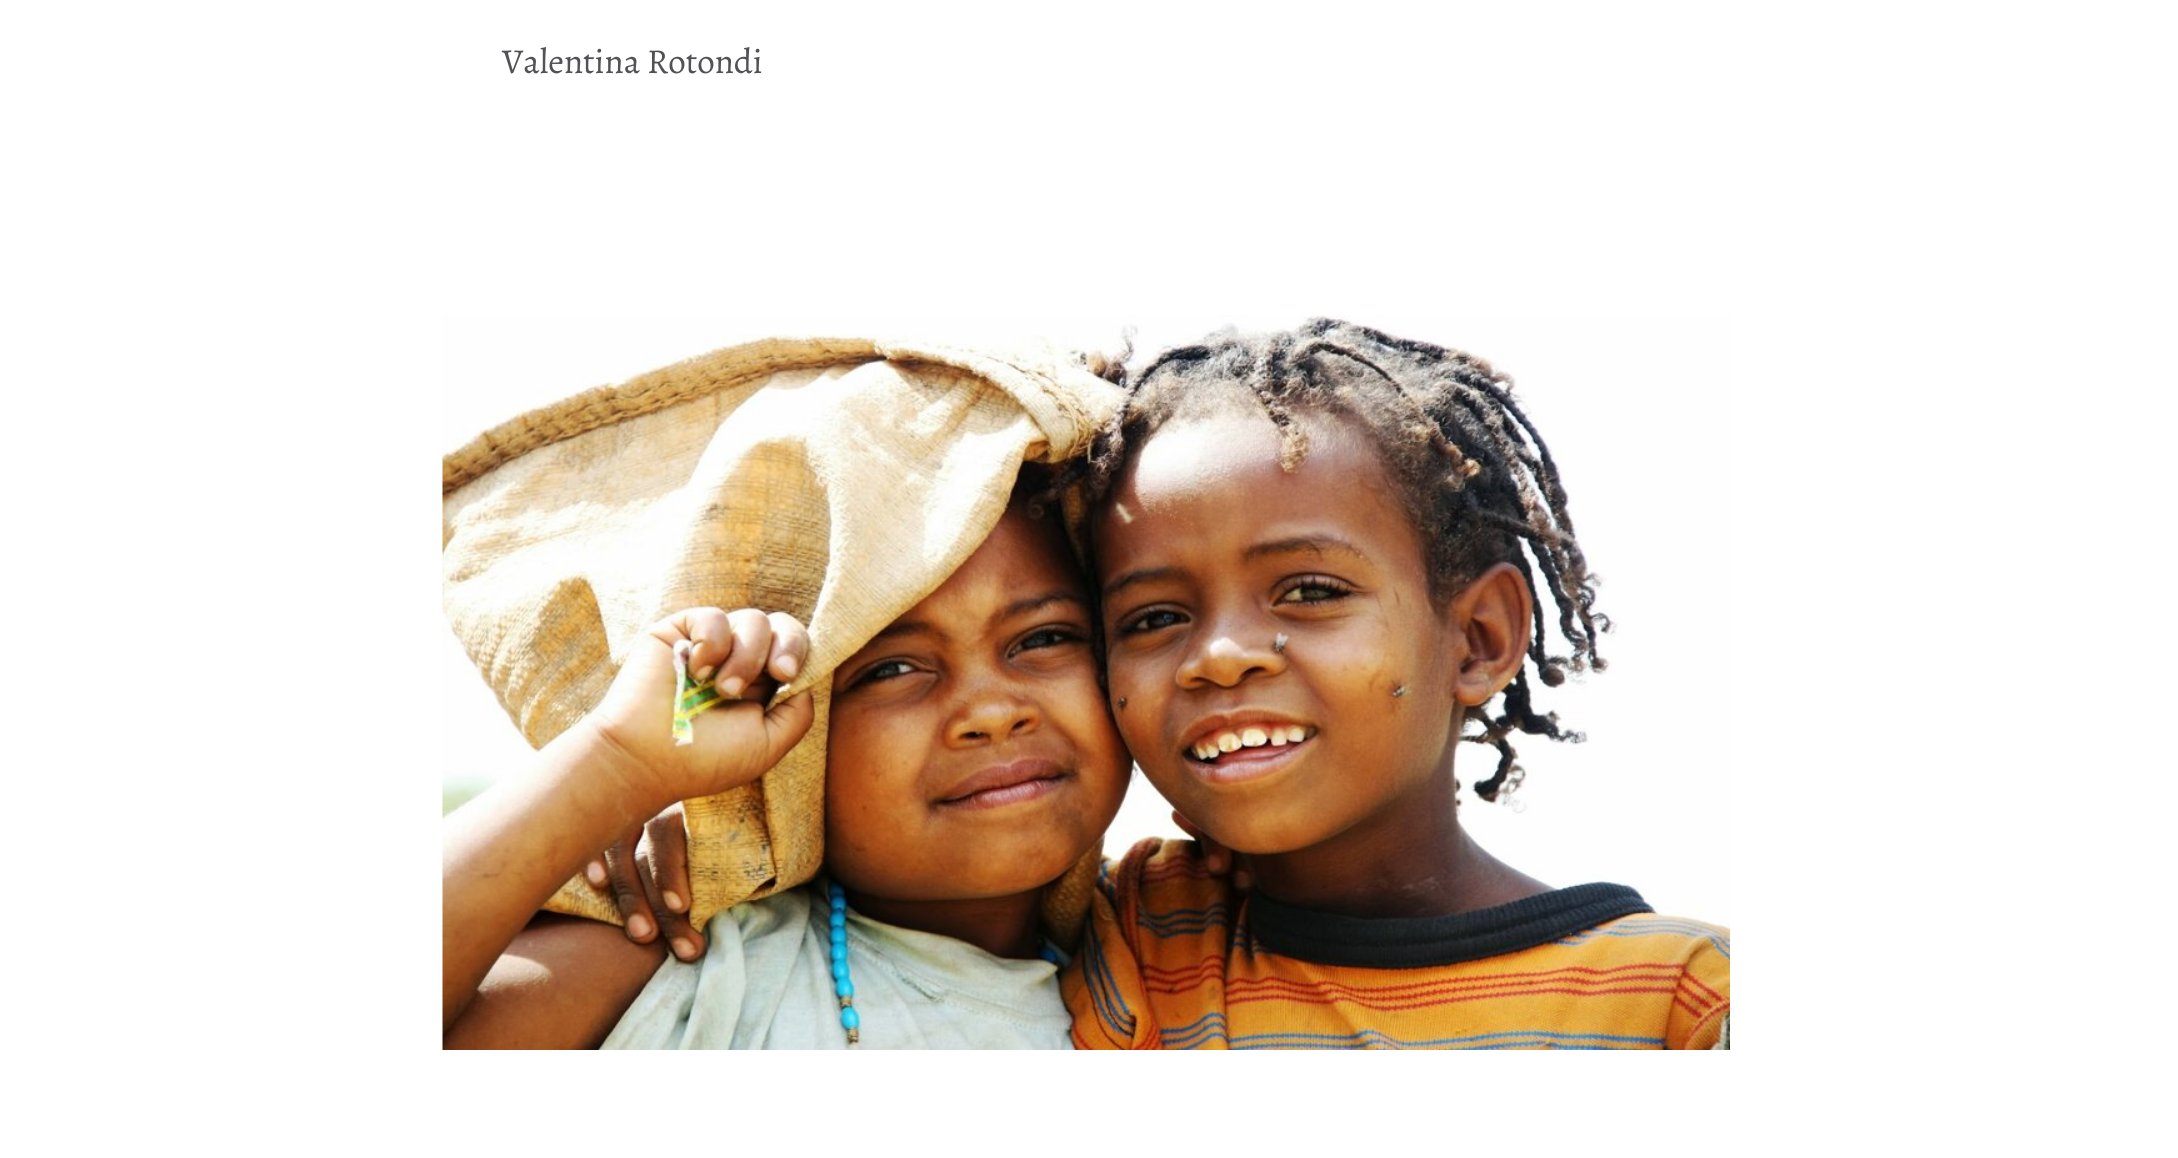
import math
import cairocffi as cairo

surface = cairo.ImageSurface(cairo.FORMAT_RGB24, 2178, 1158)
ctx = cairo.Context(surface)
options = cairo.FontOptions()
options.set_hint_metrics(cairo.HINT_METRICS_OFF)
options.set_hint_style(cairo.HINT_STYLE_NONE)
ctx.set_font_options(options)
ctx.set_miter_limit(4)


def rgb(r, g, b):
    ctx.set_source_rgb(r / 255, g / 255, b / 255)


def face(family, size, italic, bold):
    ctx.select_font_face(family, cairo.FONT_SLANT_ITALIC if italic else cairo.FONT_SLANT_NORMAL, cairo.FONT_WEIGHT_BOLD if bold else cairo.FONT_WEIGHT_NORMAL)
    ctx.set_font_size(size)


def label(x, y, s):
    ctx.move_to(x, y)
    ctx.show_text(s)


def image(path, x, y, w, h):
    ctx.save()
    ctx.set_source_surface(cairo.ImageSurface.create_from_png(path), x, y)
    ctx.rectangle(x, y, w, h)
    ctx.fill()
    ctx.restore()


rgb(255, 255, 255)
ctx.paint()
face('Alegreya', 35, 0, 0)
rgb(82, 82, 86)
label(502, 73, 'Valentina Rotondi')
image('image0.png', 442, 315, 1288, 735)
surface.write_to_png('render.png')
